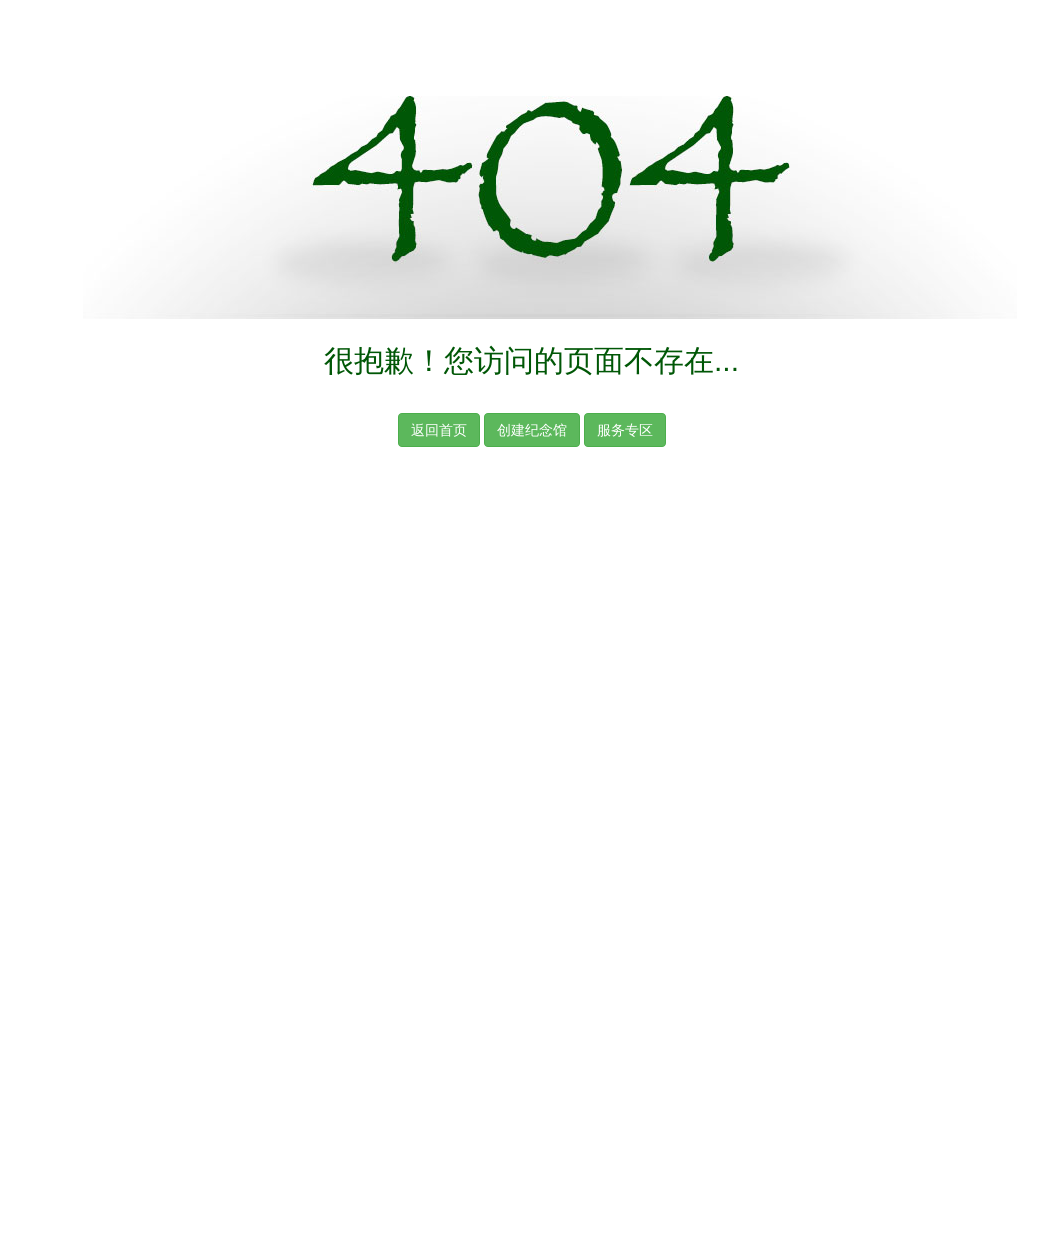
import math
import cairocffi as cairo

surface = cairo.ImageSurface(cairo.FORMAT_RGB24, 1064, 1249)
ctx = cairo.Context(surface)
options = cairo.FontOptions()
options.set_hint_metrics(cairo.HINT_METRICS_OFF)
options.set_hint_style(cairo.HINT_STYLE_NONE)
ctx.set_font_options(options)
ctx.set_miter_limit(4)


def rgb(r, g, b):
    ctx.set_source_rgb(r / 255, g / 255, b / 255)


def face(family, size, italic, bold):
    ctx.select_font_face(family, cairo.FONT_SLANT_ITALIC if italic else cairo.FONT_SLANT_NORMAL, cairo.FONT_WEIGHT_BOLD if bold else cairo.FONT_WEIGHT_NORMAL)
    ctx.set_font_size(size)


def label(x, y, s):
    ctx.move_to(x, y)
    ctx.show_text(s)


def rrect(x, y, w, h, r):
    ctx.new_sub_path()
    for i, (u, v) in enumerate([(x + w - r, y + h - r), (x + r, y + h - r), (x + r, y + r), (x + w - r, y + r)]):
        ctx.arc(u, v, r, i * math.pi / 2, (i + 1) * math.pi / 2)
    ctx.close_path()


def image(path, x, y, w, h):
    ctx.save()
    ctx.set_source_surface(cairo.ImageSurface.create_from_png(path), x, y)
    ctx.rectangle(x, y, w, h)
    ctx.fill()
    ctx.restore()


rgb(255, 255, 255)
ctx.paint()
image('image0.png', 83, 96, 934, 223)
face('WenQuanYi Zen Hei Medium', 30, 0, 0)
rgb(0, 87, 6)
label(324, 371, '很抱歉！您访问的页面不存在')
face('Liberation Sans', 30, 0, 0)
label(714, 371, '...')
rgb(92, 184, 92)
rrect(398.5, 413.5, 81, 33, 3.5)
ctx.fill_preserve()
rgb(76, 174, 76)
ctx.set_line_width(1)
ctx.stroke()
face('WenQuanYi Zen Hei Medium', 14, 0, 0)
rgb(255, 255, 255)
label(411, 435, '返回首页')
rgb(92, 184, 92)
rrect(484.5, 413.5, 95, 33, 3.5)
ctx.fill_preserve()
rgb(76, 174, 76)
ctx.stroke()
rgb(255, 255, 255)
label(497, 435, '创建纪念馆')
rgb(92, 184, 92)
rrect(584.5, 413.5, 81, 33, 3.5)
ctx.fill_preserve()
rgb(76, 174, 76)
ctx.stroke()
rgb(255, 255, 255)
label(597, 435, '服务专区')
surface.write_to_png('render.png')
